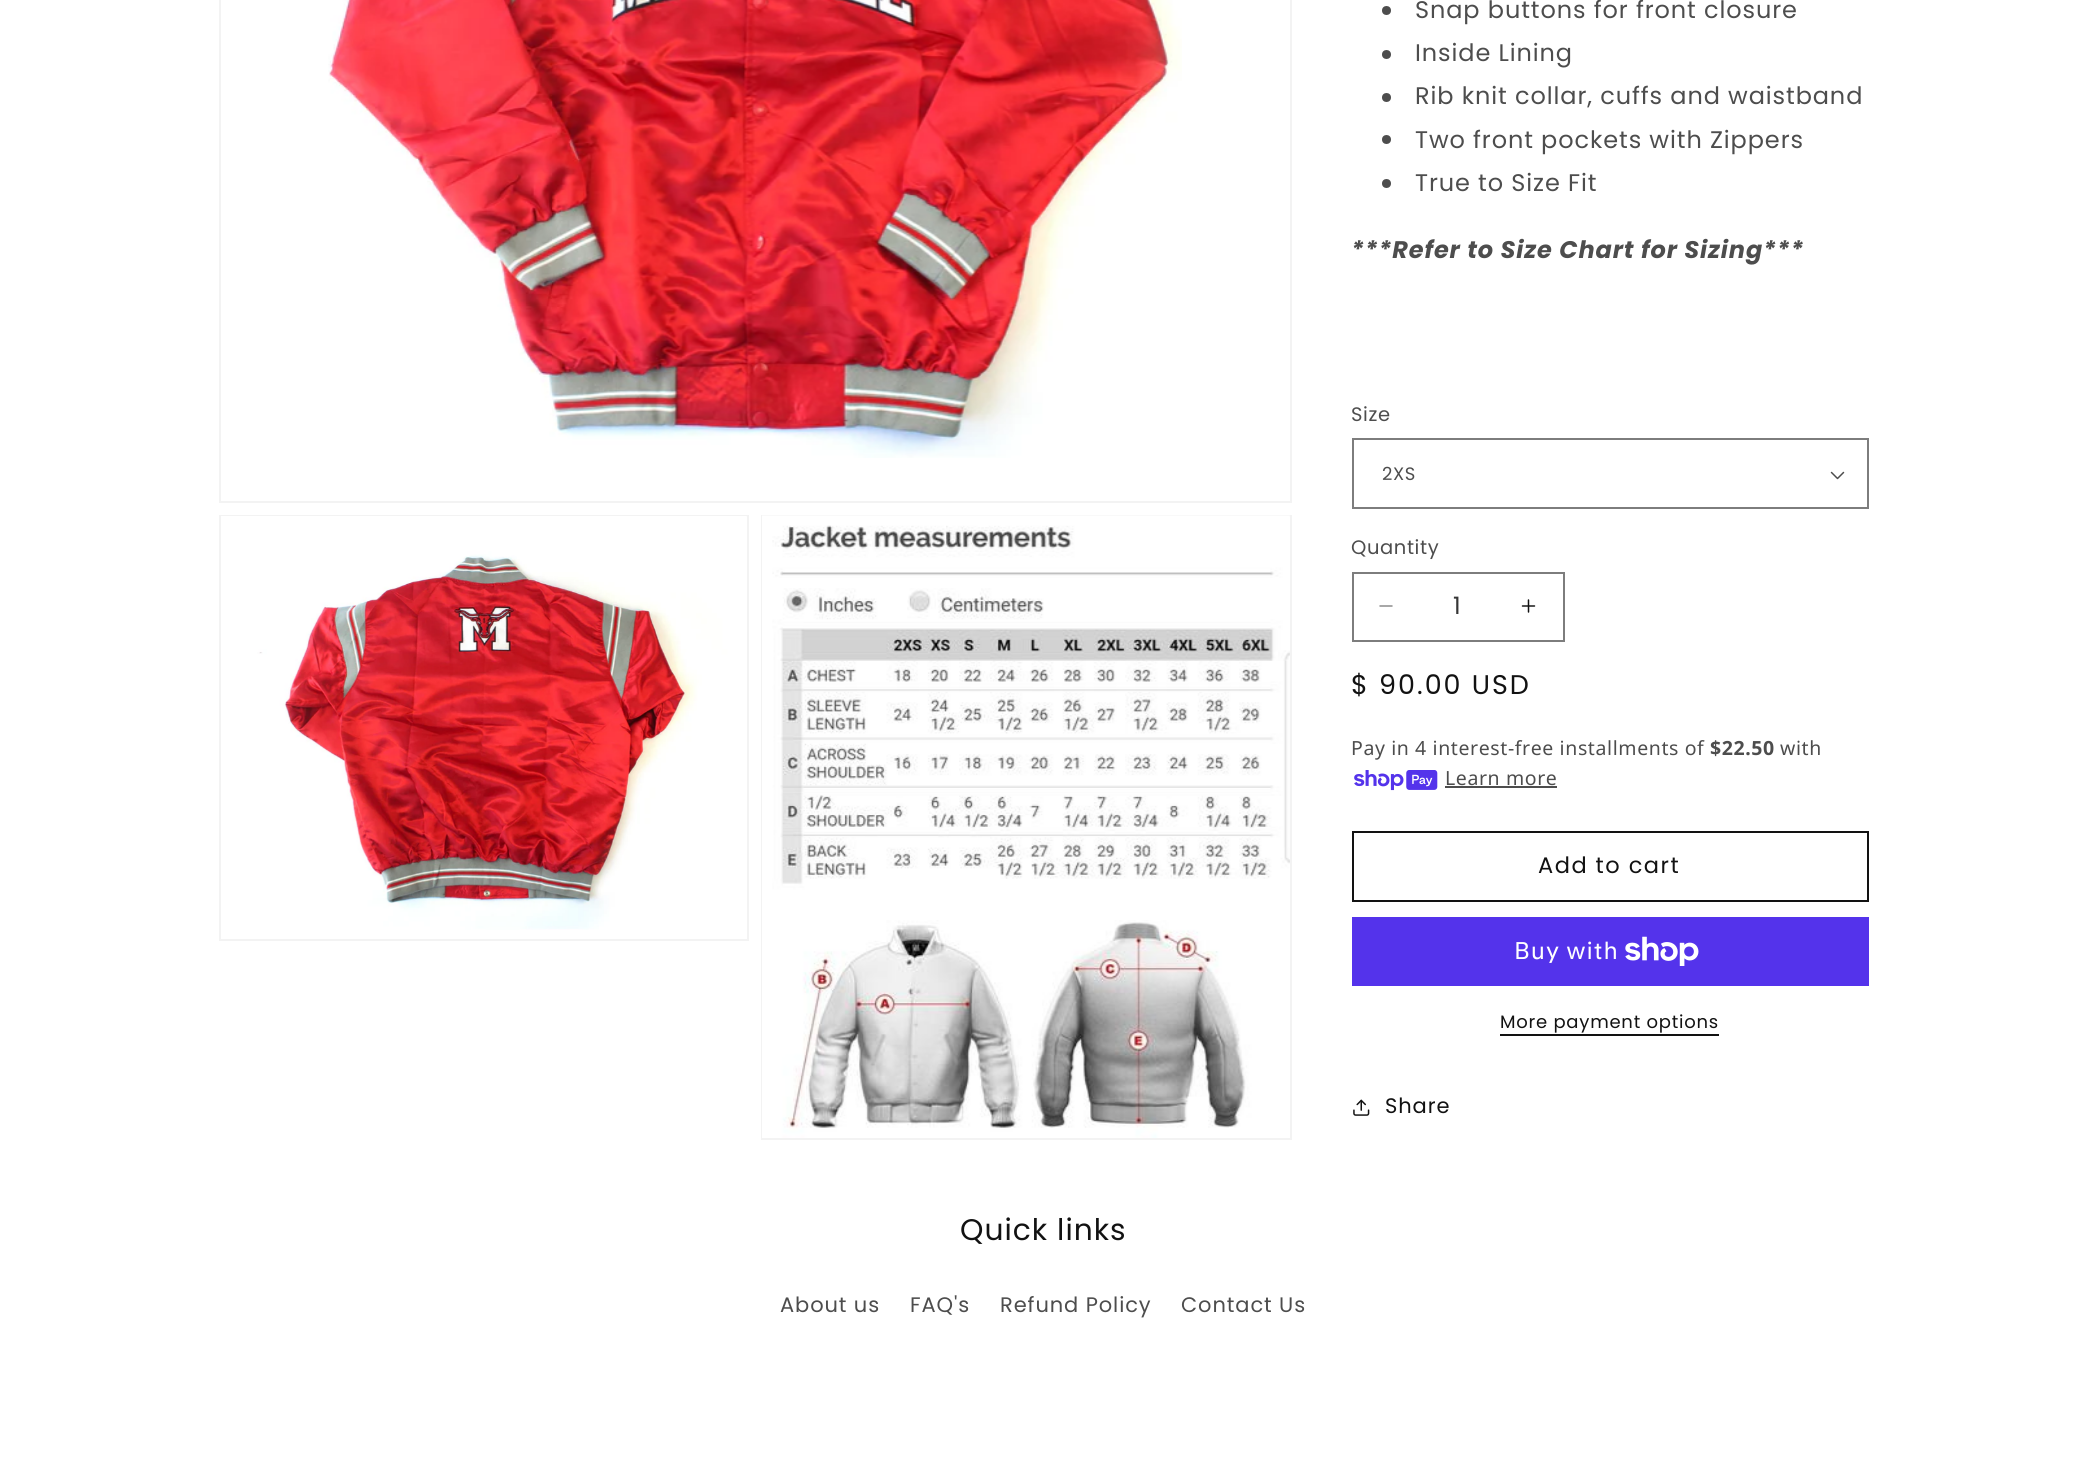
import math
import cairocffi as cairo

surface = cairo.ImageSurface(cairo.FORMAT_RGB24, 2086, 1458)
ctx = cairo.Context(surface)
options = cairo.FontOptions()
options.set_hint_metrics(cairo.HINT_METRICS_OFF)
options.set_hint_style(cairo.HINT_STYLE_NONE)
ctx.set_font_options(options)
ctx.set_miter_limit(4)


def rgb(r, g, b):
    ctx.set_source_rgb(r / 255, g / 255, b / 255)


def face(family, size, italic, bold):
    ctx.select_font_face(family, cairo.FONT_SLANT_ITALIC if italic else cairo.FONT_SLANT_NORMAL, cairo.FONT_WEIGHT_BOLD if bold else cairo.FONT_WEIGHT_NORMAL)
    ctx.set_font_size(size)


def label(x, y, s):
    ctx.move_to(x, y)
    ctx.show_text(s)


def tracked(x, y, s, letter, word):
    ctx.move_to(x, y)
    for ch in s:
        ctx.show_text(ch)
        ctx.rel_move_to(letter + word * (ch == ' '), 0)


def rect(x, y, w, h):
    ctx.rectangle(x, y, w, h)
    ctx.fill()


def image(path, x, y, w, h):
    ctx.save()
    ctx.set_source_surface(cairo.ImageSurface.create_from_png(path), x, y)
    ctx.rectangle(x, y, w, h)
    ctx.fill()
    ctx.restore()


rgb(255, 255, 255)
ctx.paint()
ctx.rectangle(220, -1, 1071, 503)
rgb(243, 243, 243)
ctx.stroke()
image('image0.png', 328, 0, 854, 458)
ctx.rectangle(220, 516, 528, 424)
ctx.stroke()
image('image1.png', 221, 516, 526, 414)
ctx.rectangle(762, 516, 529, 623)
ctx.stroke()
image('image2.png', 762, 515, 528, 623)
rgb(77, 77, 77)
ctx.arc(1386.5, 10.5, 4.5, 0, 2 * math.pi)
ctx.fill()
face('Poppins', 24, 0, 0)
tracked(1415, 18, 'Snap buttons for front closure', 0.9, 0)
ctx.new_path()
ctx.arc(1386.5, 54.5, 4.5, 0, 2 * math.pi)
ctx.fill()
tracked(1415, 61, 'Inside Lining', 0.9, 0)
ctx.new_path()
ctx.arc(1386.5, 97.5, 4.5, 0, 2 * math.pi)
ctx.fill()
tracked(1415, 104, 'Rib knit collar, cuffs and waistband', 0.9, 0)
ctx.new_path()
ctx.arc(1386.5, 139.5, 4.5, 0, 2 * math.pi)
ctx.fill()
tracked(1415, 148, 'Two front pockets with Zippers', 0.9, 0)
ctx.new_path()
ctx.arc(1386.5, 183.5, 4.5, 0, 2 * math.pi)
ctx.fill()
tracked(1415, 191, 'True to Size Fit', 0.9, 0)
face('Poppins', 24, 1, 1)
tracked(1351, 258, '***Refer to Size Chart for Sizing***', 0.9, 0)
face('Poppins', 19.5, 0, 0)
tracked(1351, 421, 'Size', 0.6, 0)
image('image3.png', 1830, 471, 15, 9)
ctx.rectangle(1353, 439, 515, 69)
rgb(125, 125, 125)
ctx.stroke()
face('Poppins', 18, 0, 0)
rgb(77, 77, 77)
tracked(1382, 480, '2XS', 0.6, 0)
face('Poppins', 19.5, 0, 0)
tracked(1351, 554, 'Quantity', 0.6, 0)
image('image4.png', 1379, 605, 14, 2)
image('image5.png', 1521, 599, 15, 14)
ctx.rectangle(1353, 573, 211, 68)
rgb(125, 125, 125)
ctx.stroke()
face('Poppins', 24, 0, 0)
rgb(54, 54, 54)
label(1453, 614, '1')
face('Poppins', 27, 0, 0)
rgb(18, 18, 18)
tracked(1351, 694, '$ 90.00 USD', 2, 0)
face('Noto Sans', 19.5, 0, 0)
rgb(77, 77, 77)
tracked(1351, 755, 'Pay in 4 interest-free installments of', 0.6, 0)
face('Noto Sans', 19.5, 0, 1)
tracked(1710, 755, '$22.50', 0.6, 0)
face('Noto Sans', 19.5, 0, 0)
tracked(1780, 755, 'with', 0.6, 0)
image('image6.png', 1354, 770, 84, 21)
tracked(1445, 785, 'Learn more', 0.6, 0)
rect(1445, 786, 112, 2)
ctx.rectangle(1353, 832, 515, 69)
rgb(18, 18, 18)
ctx.stroke()
face('Poppins', 22.5, 0, 0)
tracked(1538, 873, 'Add to cart', 1.5, 0)
rgb(84, 51, 235)
rect(1352, 917, 517, 69)
face('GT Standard', 24, 0, 0)
rgb(255, 255, 255)
tracked(1514, 959, 'Buy with', 0.9, 0)
image('image7.png', 1625, 936, 74, 30)
face('Poppins', 18, 0, 0)
rgb(18, 18, 18)
tracked(1500, 1028, 'More payment options', 0.75, 0)
rect(1500, 1034, 219, 2)
image('image8.png', 1353, 1099, 17, 17)
face('Poppins', 21, 0, 0)
tracked(1385, 1113, 'Share', 0.9, 0)
face('Poppins', 29.75, 0, 0)
tracked(960, 1240, 'Quick links', 1, 0)
face('Poppins', 21, 0, 0)
rgb(77, 77, 77)
tracked(780, 1312, 'About us', 0.9, 0)
tracked(910, 1312, 'FAQ\'s', 0.9, 0)
tracked(1000, 1312, 'Refund Policy', 0.9, 0)
tracked(1181, 1312, 'Contact Us', 0.9, 0)
surface.write_to_png('render.png')
